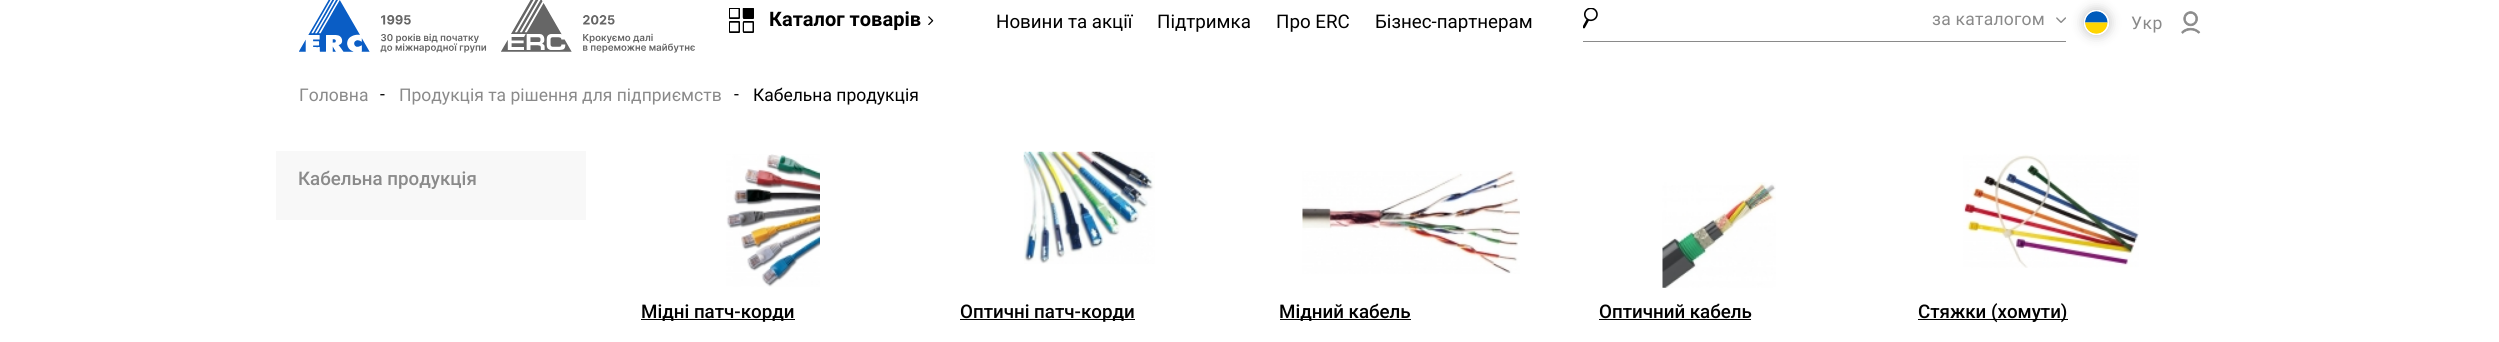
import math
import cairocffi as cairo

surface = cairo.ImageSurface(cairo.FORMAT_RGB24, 2499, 342)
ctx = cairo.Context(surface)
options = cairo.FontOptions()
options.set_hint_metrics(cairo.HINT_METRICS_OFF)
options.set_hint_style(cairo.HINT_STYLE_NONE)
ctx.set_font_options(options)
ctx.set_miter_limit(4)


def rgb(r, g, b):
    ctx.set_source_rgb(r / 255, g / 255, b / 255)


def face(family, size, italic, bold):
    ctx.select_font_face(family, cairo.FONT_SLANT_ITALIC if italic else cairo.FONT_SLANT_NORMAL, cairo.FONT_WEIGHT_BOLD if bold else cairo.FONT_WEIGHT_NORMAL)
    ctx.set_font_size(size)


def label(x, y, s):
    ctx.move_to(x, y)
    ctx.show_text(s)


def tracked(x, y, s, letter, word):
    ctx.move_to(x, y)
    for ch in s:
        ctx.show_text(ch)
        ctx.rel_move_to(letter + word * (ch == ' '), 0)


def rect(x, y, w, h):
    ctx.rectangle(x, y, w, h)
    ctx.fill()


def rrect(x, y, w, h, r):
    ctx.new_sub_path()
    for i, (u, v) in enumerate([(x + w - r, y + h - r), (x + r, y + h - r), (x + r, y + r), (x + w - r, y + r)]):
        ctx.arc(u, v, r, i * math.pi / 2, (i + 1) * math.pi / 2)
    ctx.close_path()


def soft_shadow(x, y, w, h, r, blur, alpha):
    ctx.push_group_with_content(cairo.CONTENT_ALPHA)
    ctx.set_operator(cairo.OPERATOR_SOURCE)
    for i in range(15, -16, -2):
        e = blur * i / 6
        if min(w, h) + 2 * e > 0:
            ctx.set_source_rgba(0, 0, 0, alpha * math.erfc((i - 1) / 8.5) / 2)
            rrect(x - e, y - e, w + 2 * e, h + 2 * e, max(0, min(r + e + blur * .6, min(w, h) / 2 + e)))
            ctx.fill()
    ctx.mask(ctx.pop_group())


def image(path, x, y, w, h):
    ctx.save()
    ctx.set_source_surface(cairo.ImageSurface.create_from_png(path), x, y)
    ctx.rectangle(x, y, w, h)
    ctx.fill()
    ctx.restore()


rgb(255, 255, 255)
ctx.paint()
image('image0.png', 299, 0, 396, 53)
rrect(729.5, 8.5, 10, 10, 0.5)
rgb(0, 0, 0)
ctx.set_line_width(1)
ctx.stroke()
rrect(743, 8, 11, 11, 1)
ctx.fill()
rrect(743.5, 21.5, 10, 11, 0.5)
ctx.stroke()
rrect(729.5, 21.5, 10, 11, 0.5)
ctx.stroke()
image('image1.png', 729, 8, 25, 25)
face('Roboto', 20, 0, 1)
label(769, 26, 'Каталог товарів')
image('image2.png', 928, 16, 6, 9)
face('Roboto', 18.75, 0, 0)
label(996, 28, 'Новини та акції')
label(1157, 28, 'Підтримка')
label(1276, 28, 'Про ERC')
label(1375, 28, 'Бізнес-партнерам')
rgb(138, 138, 138)
rect(1583, 41, 483, 1)
image('image3.png', 1583, 8, 15, 21)
face('Roboto', 17.5, 0, 0)
tracked(1932, 25, 'за каталогом', 0.25, 0)
image('image4.png', 2056, 17, 10, 6)
ctx.save()
ctx.set_fill_rule(cairo.FILL_RULE_EVEN_ODD)
ctx.new_path()
ctx.move_to(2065, 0)
ctx.line_to(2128, 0)
ctx.line_to(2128, 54)
ctx.line_to(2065, 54)
ctx.close_path()
ctx.move_to(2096.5, 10)
ctx.curve_to(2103.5, 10, 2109, 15.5, 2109, 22.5)
ctx.curve_to(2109, 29.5, 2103.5, 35, 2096.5, 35)
ctx.curve_to(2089.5, 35, 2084, 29.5, 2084, 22.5)
ctx.curve_to(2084, 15.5, 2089.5, 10, 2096.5, 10)
ctx.close_path()
ctx.clip()
rgb(0, 0, 0)
soft_shadow(2084, 10, 25, 25, 12.5, 6, 0.25)
ctx.restore()
ctx.arc(2096.5, 22.5, 12, 0, 2 * math.pi)
rgb(255, 255, 255)
ctx.stroke()
image('image5.png', 2085, 11, 23, 23)
rgb(138, 138, 138)
tracked(2131, 29, 'Укр', 0.5, 0)
image('image6.png', 2181, 11, 20, 23)
label(299, 101, 'Головна')
rgb(0, 0, 0)
label(380, 100, '-')
rgb(138, 138, 138)
label(399, 101, 'Продукція та рішення для підприємств')
rgb(0, 0, 0)
label(734, 100, '-')
label(753, 101, 'Кабельна продукція')
rgb(248, 248, 248)
rect(276, 151, 310, 69)
face('Roboto Medium', 18.75, 0, 0)
rgb(138, 138, 138)
label(298, 185, 'Кабельна продукція')
image('image7.png', 726, 154, 94, 133)
rgb(0, 0, 0)
rect(641, 319, 154, 1)
label(641, 318, 'Мідні патч-корди')
image('image8.png', 1023, 151, 132, 113)
rect(960, 319, 175, 1)
label(960, 318, 'Оптичні патч-корди')
image('image9.png', 1302, 171, 218, 103)
rect(1280, 319, 131, 1)
label(1279, 318, 'Мідний кабель')
image('image10.png', 1662, 182, 114, 106)
label(1599, 318, 'Оптичний кабель')
rect(1599, 319, 152, 1)
image('image11.png', 1963, 154, 176, 114)
rect(1918, 319, 150, 1)
label(1918, 318, 'Стяжки (хомути)')
surface.write_to_png('render.png')
